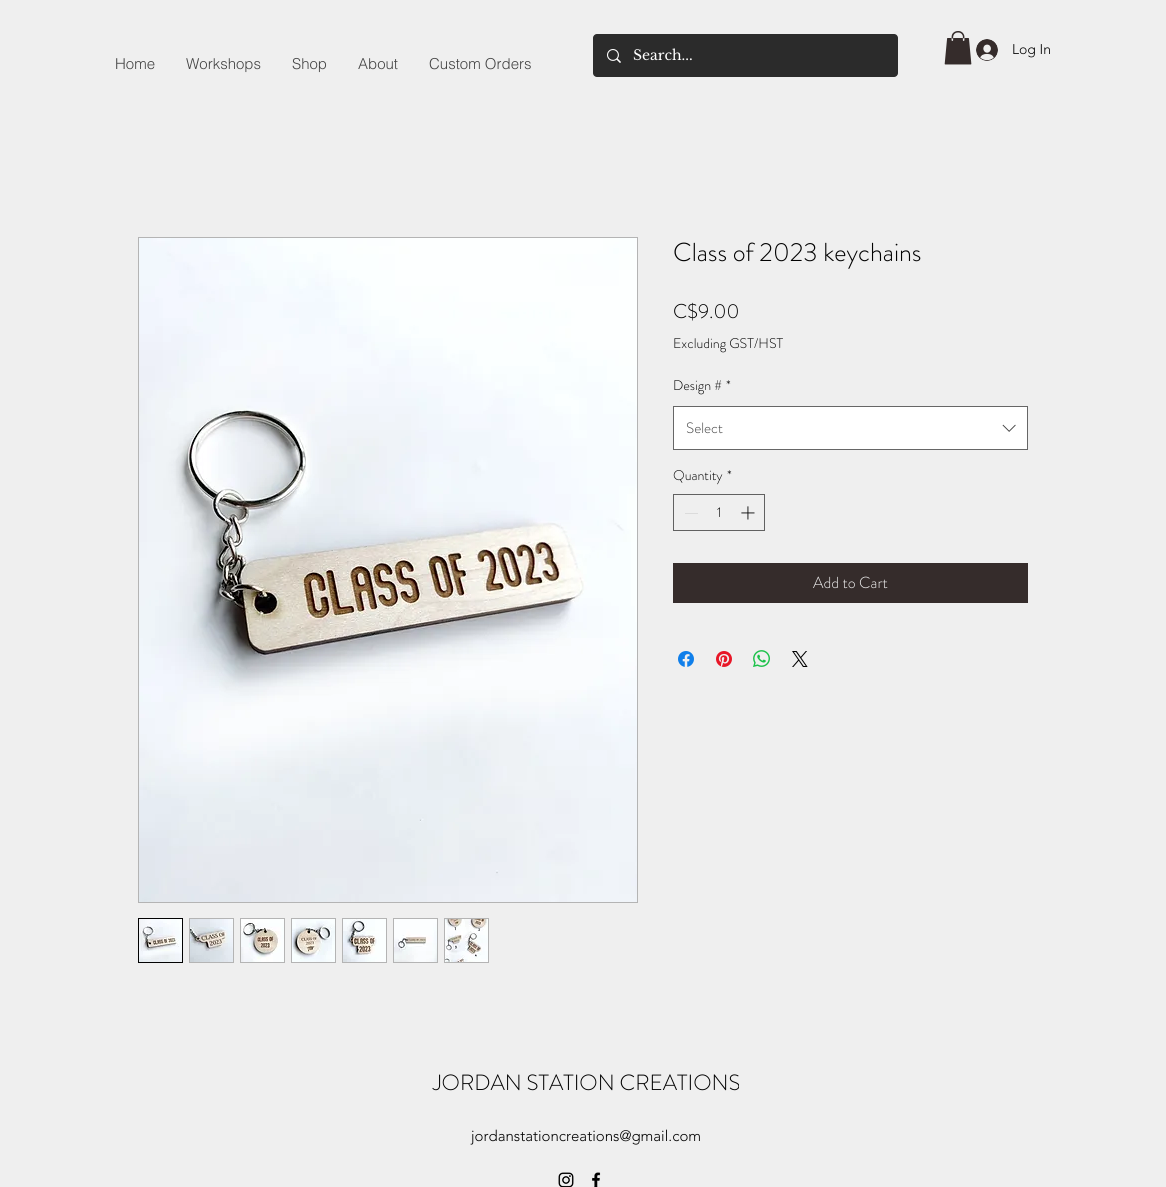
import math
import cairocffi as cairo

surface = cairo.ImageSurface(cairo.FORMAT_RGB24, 1166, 1187)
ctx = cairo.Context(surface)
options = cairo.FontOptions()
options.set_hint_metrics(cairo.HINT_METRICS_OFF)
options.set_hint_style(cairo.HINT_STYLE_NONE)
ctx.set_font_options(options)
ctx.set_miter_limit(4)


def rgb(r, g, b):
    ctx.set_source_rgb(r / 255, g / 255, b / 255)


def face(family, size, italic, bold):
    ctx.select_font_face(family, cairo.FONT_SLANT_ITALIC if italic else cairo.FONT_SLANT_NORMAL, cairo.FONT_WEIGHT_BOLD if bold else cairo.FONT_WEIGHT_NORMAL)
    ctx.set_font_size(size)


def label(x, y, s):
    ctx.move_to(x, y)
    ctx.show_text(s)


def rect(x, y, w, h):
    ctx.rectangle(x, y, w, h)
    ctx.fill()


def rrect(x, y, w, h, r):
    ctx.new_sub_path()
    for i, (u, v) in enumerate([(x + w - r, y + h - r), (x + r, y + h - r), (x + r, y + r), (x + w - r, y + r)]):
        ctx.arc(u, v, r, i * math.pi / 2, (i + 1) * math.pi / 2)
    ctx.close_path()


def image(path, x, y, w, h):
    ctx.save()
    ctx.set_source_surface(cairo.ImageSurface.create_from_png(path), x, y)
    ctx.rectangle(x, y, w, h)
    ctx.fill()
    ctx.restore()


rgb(239, 239, 239)
ctx.paint()
rgb(43, 43, 43)
rrect(593, 34, 305, 43, 4)
ctx.fill()
image('image0.png', 607, 49, 14, 14)
face('Libre Baskerville', 14, 0, 0)
rgb(255, 255, 255)
label(633, 60, 'Search...')
image('image1.png', 944, 31, 28, 34)
image('image2.png', 976, 39, 22, 22)
face('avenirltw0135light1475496 Light', 14, 0, 0)
rgb(2, 2, 2)
label(1012, 54, 'Log In')
face('helvetica Light', 15, 0, 0)
rgb(68, 68, 68)
label(115, 69, 'Home')
label(186, 69, 'Workshops')
label(292, 69, 'Shop')
label(358, 69, 'About')
label(429, 69, 'Custom Orders')
ctx.rectangle(138.5, 237.5, 499, 665)
rgb(180, 180, 180)
ctx.set_line_width(1)
ctx.stroke()
image('image3.png', 139, 238, 498, 664)
ctx.rectangle(138.5, 918.5, 44, 44)
rgb(2, 2, 2)
ctx.stroke()
image('image4.png', 139, 919, 43, 43)
rgb(180, 180, 180)
rect(189, 918, 45, 45)
image('image5.png', 190, 919, 43, 43)
rect(240, 918, 45, 45)
image('image6.png', 241, 919, 43, 43)
rect(291, 918, 45, 45)
image('image7.png', 292, 919, 43, 43)
rect(342, 918, 45, 45)
image('image8.png', 343, 919, 43, 43)
rect(393, 918, 45, 45)
image('image9.png', 394, 919, 43, 43)
rect(444, 918, 45, 45)
image('image10.png', 445, 919, 43, 43)
face('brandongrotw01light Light', 26, 0, 0)
rgb(2, 2, 2)
label(673, 261, 'Class of 2023 keychains')
face('brandongrotw01light Light', 20, 0, 0)
label(673, 318, 'C$9.00')
face('brandongrotw01light Light', 14, 0, 0)
label(673, 348, 'Excluding GST/HST')
label(673, 390, 'Design #')
label(726, 390, '*')
rgb(255, 255, 255)
ctx.rectangle(673.5, 406.5, 354, 43)
ctx.fill_preserve()
rgb(102, 102, 102)
ctx.stroke()
face('brandongrotw01light Light', 15, 0, 0)
rgb(68, 68, 68)
label(686, 433, 'Select')
image('image11.png', 1002, 424, 14, 8)
face('brandongrotw01light Light', 14, 0, 0)
rgb(2, 2, 2)
label(673, 480, 'Quantity')
label(727, 480, '*')
ctx.rectangle(673.5, 494.5, 91, 36)
rgb(97, 97, 97)
ctx.stroke()
rgb(219, 219, 219)
rect(685, 513, 13, 1)
rgb(2, 2, 2)
label(717, 517, '1')
image('image12.png', 741, 506, 14, 14)
rgb(53, 44, 43)
rect(673, 563, 355, 40)
face('brandongrotw01light Light', 16, 0, 0)
rgb(239, 239, 239)
label(813, 588, 'Add to Cart')
image('image13.png', 678, 651, 16, 16)
image('image14.png', 716, 651, 16, 16)
image('image15.png', 753, 650, 17, 17)
image('image16.png', 792, 651, 16, 16)
face('brandongrotw01light Light', 22, 0, 0)
rgb(2, 2, 2)
label(433, 1090, 'JORDAN STATION CREATIONS')
face('avenirltw0135light1475496 Light', 15, 0, 0)
label(471, 1141, 'jordanstationcreations@gmail.com')
image('image17.png', 558, 1172, 16, 15)
image('image18.png', 592, 1172, 9, 15)
surface.write_to_png('render.png')
